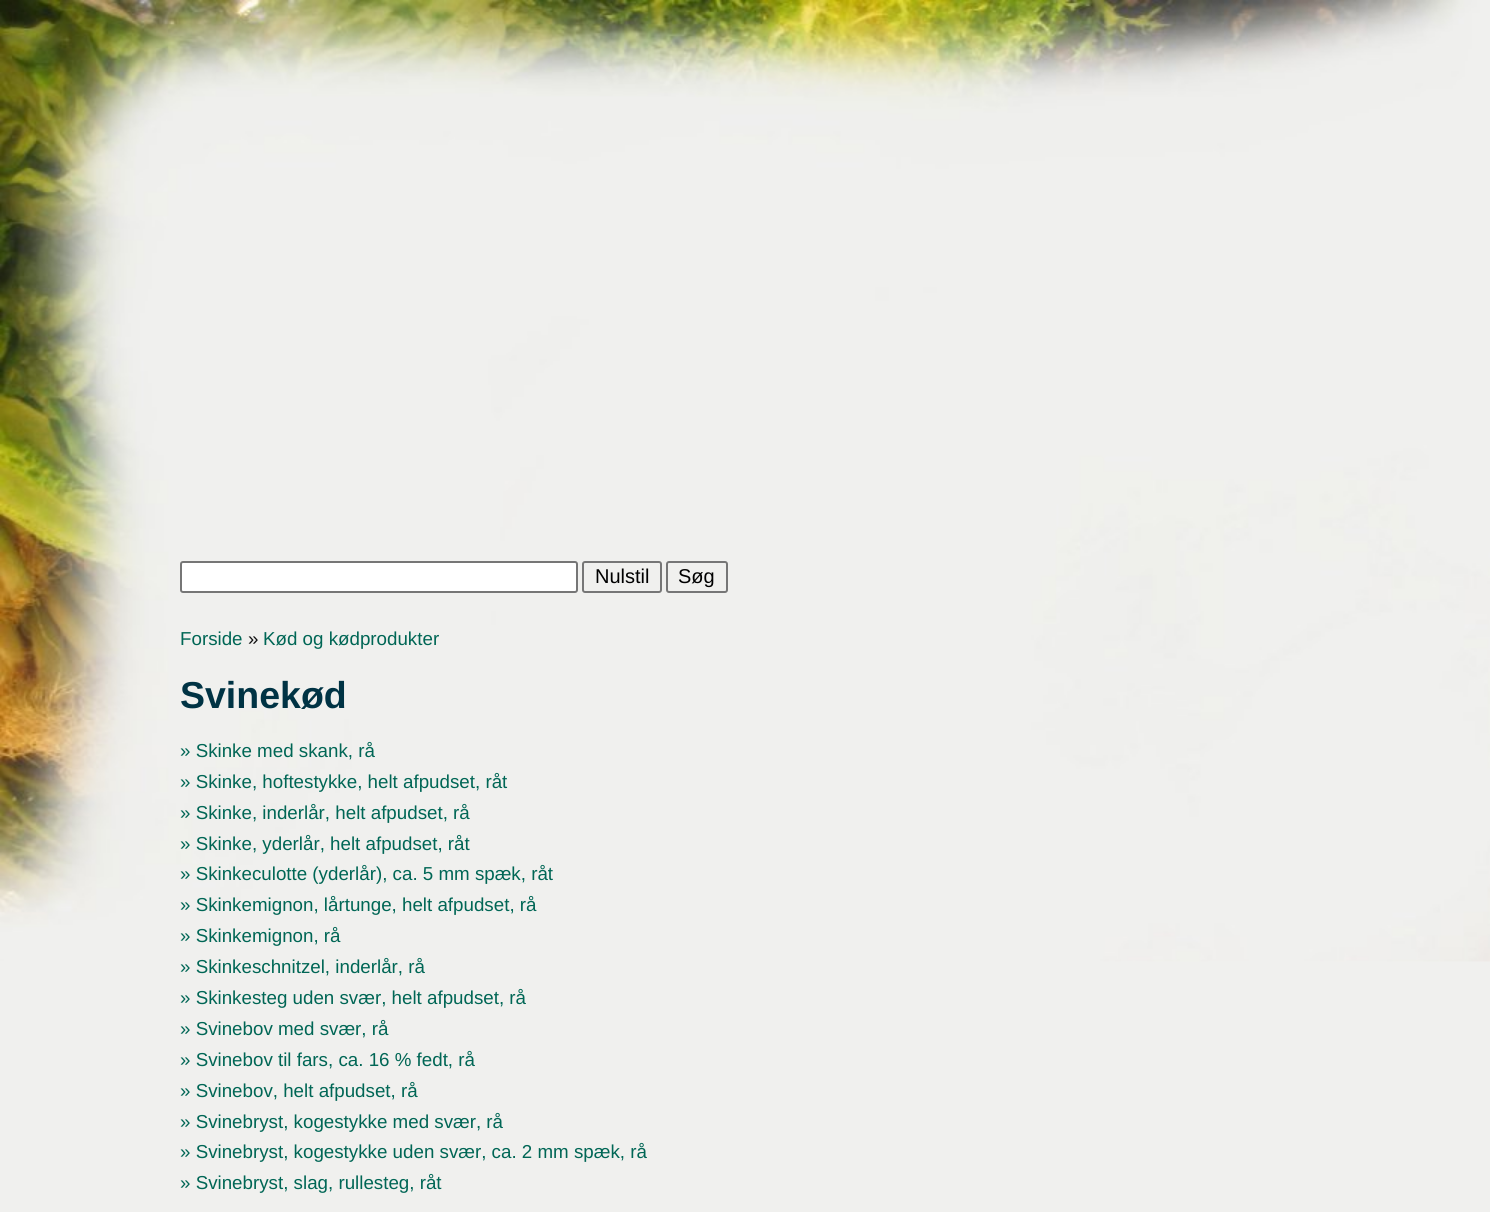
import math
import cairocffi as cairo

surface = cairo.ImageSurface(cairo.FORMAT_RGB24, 1490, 1212)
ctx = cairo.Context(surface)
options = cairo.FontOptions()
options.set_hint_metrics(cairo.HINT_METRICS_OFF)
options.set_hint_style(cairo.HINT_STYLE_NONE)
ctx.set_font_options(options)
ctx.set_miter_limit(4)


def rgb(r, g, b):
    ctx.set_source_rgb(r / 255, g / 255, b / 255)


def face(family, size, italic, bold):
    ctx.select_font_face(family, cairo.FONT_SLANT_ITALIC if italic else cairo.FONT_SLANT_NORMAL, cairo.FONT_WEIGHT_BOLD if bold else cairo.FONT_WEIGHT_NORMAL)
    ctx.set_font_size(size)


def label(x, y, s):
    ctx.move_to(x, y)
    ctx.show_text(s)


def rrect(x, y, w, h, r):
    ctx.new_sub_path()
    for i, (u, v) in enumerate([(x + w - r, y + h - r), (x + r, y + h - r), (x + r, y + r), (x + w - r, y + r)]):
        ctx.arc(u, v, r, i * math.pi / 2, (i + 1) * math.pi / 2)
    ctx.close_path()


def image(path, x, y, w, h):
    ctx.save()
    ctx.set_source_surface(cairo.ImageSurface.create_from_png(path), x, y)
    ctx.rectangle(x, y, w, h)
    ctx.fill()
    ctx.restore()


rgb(240, 240, 238)
ctx.paint()
image('image0.png', 0, 0, 1490, 962)
rgb(255, 255, 255)
rrect(181, 562, 396, 30, 2)
ctx.fill_preserve()
rgb(118, 118, 118)
ctx.stroke()
rrect(583, 562, 78, 30, 2)
ctx.stroke()
face('Liberation Sans', 20, 0, 0)
rgb(0, 0, 0)
label(595, 583, 'Nulstil')
rrect(667, 562, 60, 30, 2)
rgb(118, 118, 118)
ctx.stroke()
rgb(0, 0, 0)
label(678, 583, 'Søg')
face('Liberation Sans', 18.75, 0, 0)
rgb(0, 102, 85)
label(180, 645, 'Forside')
rgb(17, 17, 17)
label(248, 645, '»')
rgb(0, 102, 85)
label(263, 645, 'Kød og kødprodukter')
face('Liberation Sans', 37.5, 0, 1)
rgb(0, 51, 68)
label(180, 708, 'Svinekød')
face('Liberation Sans', 18.75, 0, 0)
rgb(0, 102, 85)
label(180, 757, '» Skinke med skank, rå')
label(180, 788, '» Skinke, hoftestykke, helt afpudset, råt')
label(180, 819, '» Skinke, inderlår, helt afpudset, rå')
label(180, 850, '» Skinke, yderlår, helt afpudset, råt')
label(180, 880, '» Skinkeculotte (yderlår), ca. 5 mm spæk, råt')
label(180, 911, '» Skinkemignon, lårtunge, helt afpudset, rå')
label(180, 942, '» Skinkemignon, rå')
label(180, 973, '» Skinkeschnitzel, inderlår, rå')
label(180, 1004, '» Skinkesteg uden svær, helt afpudset, rå')
label(180, 1035, '» Svinebov med svær, rå')
label(180, 1066, '» Svinebov til fars, ca. 16 % fedt, rå')
label(180, 1097, '» Svinebov, helt afpudset, rå')
label(180, 1128, '» Svinebryst, kogestykke med svær, rå')
label(180, 1158, '» Svinebryst, kogestykke uden svær, ca. 2 mm spæk, rå')
label(180, 1189, '» Svinebryst, slag, rullesteg, råt')
surface.write_to_png('render.png')
